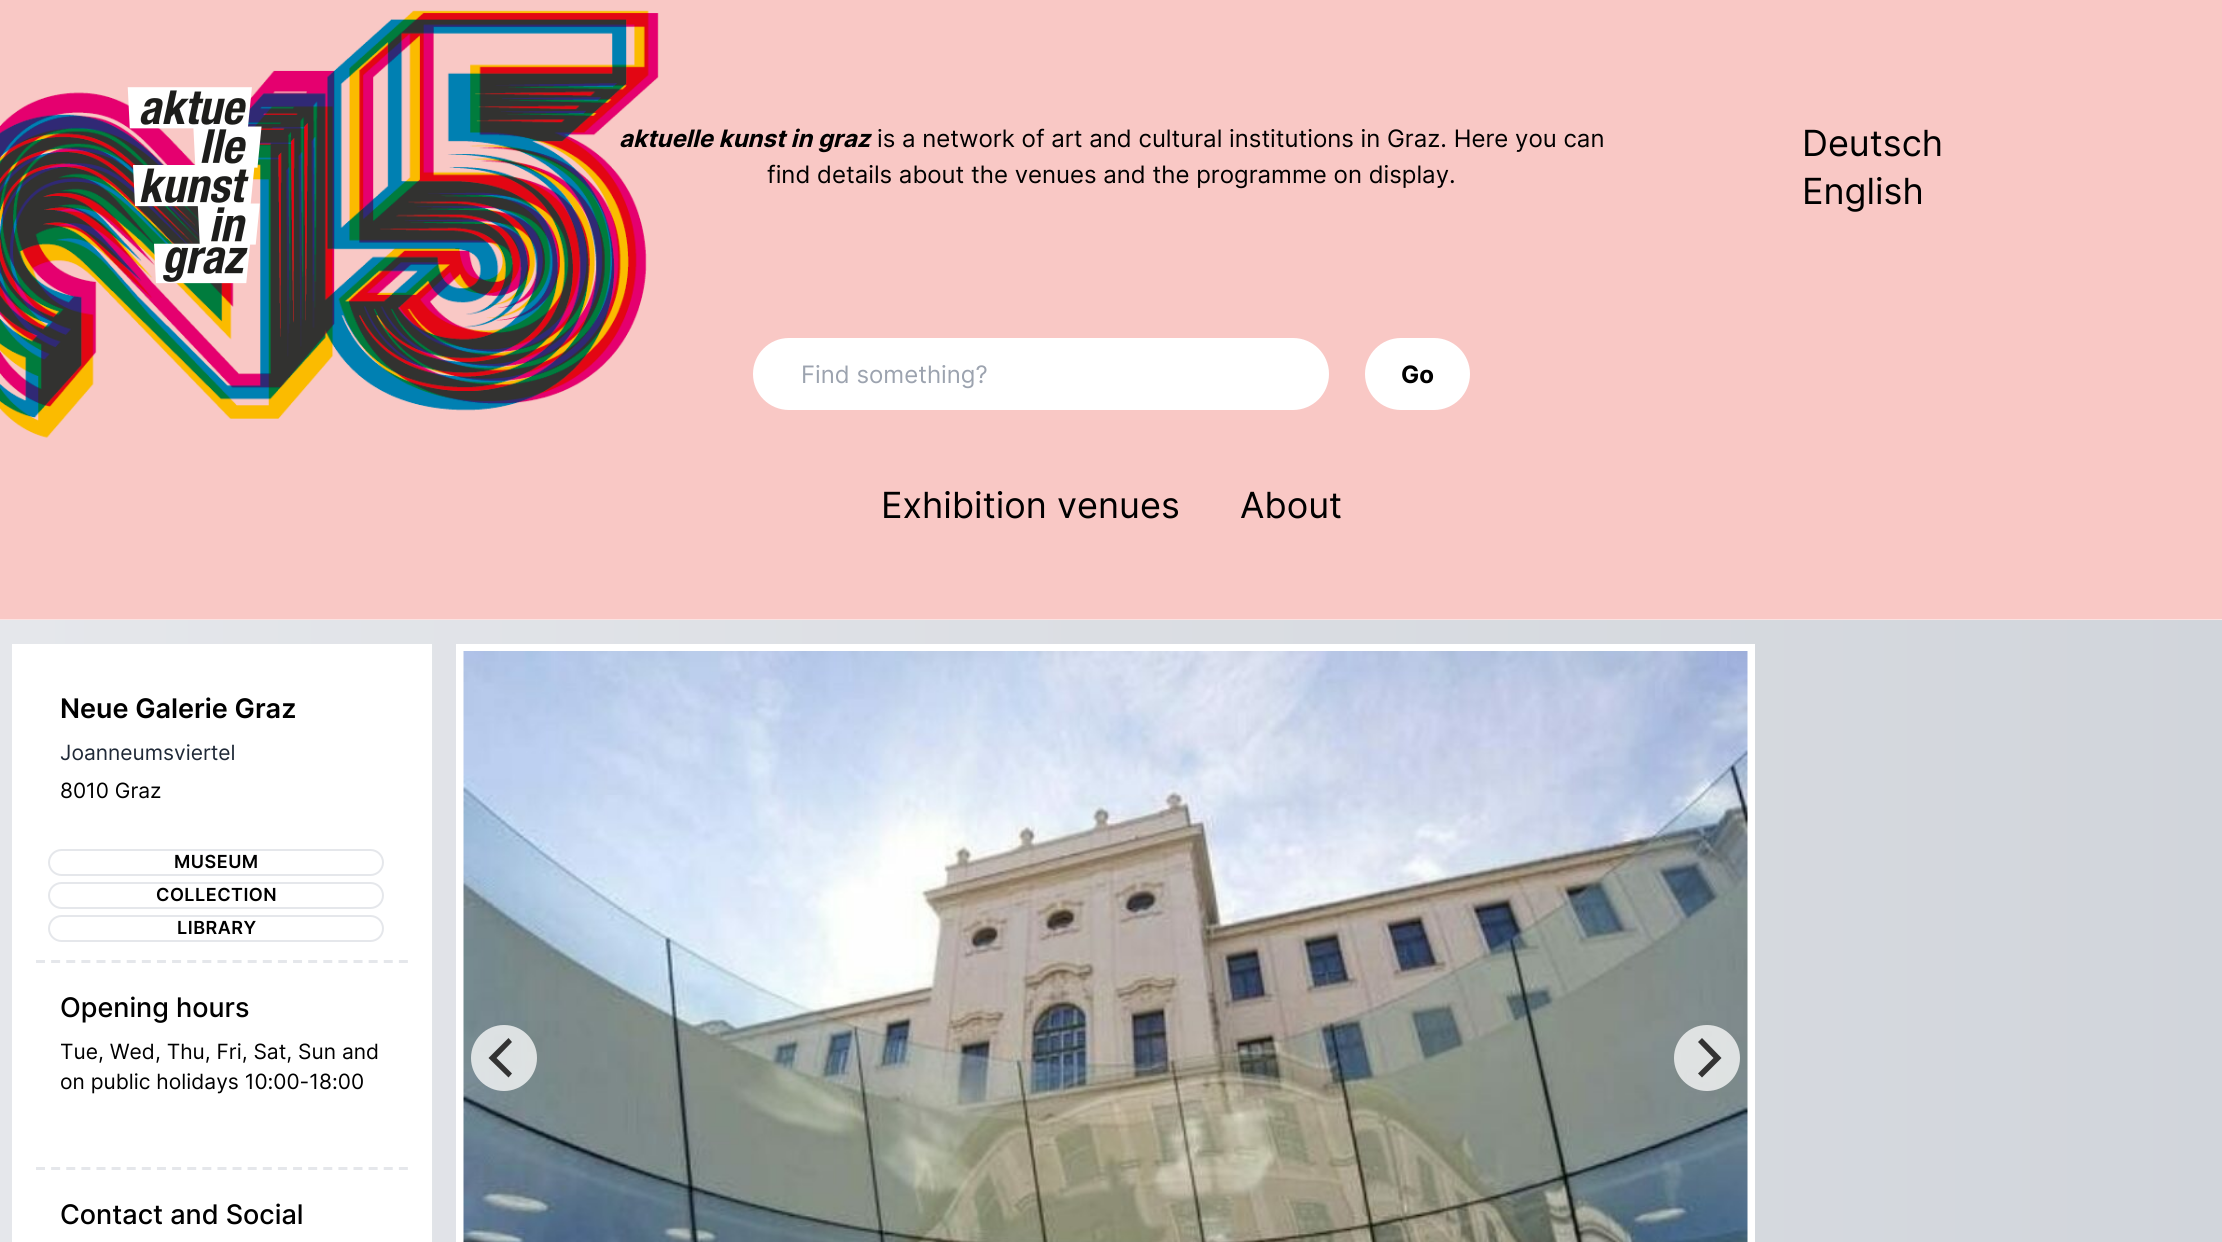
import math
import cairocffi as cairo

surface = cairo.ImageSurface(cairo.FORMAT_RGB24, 2222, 1242)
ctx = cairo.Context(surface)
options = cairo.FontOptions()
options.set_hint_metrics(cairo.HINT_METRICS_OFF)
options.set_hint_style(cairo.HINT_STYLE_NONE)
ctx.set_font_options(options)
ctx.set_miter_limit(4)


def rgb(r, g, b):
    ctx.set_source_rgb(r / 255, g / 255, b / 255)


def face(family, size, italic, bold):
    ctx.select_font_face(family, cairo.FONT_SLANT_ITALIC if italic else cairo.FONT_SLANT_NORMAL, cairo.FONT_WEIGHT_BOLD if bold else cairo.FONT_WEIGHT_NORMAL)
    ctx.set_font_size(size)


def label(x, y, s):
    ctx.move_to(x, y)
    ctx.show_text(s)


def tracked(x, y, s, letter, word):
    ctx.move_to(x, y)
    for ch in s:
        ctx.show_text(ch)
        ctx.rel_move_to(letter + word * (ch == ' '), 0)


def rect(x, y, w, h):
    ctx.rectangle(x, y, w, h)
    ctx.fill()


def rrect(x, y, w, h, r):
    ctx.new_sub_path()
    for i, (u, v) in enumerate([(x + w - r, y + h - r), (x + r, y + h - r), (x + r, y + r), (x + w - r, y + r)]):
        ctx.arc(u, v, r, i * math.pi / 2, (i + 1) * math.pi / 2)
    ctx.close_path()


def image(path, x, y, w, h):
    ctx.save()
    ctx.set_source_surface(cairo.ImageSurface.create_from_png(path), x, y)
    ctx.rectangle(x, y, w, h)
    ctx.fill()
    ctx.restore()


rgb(255, 255, 255)
ctx.paint()
image('image0.png', 0, 0, 2222, 620)
image('image1.png', 127, 87, 135, 197)
face('Inter', 24, 1, 1)
rgb(0, 0, 0)
label(619, 147, 'aktuelle kunst in graz')
face('Inter', 24, 0, 0)
label(877, 147, 'is a network of art and cultural institutions in Graz. Here you can')
label(767, 183, 'find details about the venues and the programme on display.')
face('Inter', 36, 0, 0)
label(1802, 156, 'Deutsch')
label(1802, 204, 'English')
rgb(255, 255, 255)
rrect(753, 338, 576, 72, 36)
ctx.fill()
face('Inter', 24, 0, 0)
rgb(156, 163, 175)
label(801, 383, 'Find something?')
rgb(255, 255, 255)
rrect(1365, 338, 105, 72, 36)
ctx.fill()
face('Inter', 24, 0, 1)
rgb(0, 0, 0)
label(1401, 383, 'Go')
face('Inter', 36, 0, 0)
label(881, 518, 'Exhibition venues')
label(1240, 518, 'About')
gradient = cairo.LinearGradient(0, 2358, 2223, 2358)
gradient.add_color_stop_rgba(0, 0.898, 0.906, 0.922, 1)
gradient.add_color_stop_rgba(1, 0.82, 0.835, 0.859, 1)
ctx.set_source(gradient)
rect(0, 620, 2222, 622)
rgb(255, 255, 255)
rect(12, 644, 420, 598)
face('Inter SemiBold', 27, 0, 0)
rgb(0, 0, 0)
label(60, 718, 'Neue Galerie Graz')
face('Inter', 21, 0, 0)
rgb(31, 41, 55)
label(60, 760, 'Joanneumsviertel')
rgb(0, 0, 0)
label(60, 798, '8010 Graz')
ctx.new_path()
ctx.move_to(36, 961.5)
ctx.line_to(408, 961.5)
rgb(229, 231, 235)
ctx.set_line_width(3)
ctx.set_dash([9, 6.12])
ctx.stroke()
rrect(49, 850, 334, 25, 12.5)
ctx.set_line_width(2)
ctx.set_dash([])
ctx.stroke()
face('Inter SemiBold', 18, 0, 0)
rgb(0, 0, 0)
tracked(174, 868, 'MUSEUM', 0.5, 0)
rrect(49, 883, 334, 25, 12.5)
rgb(229, 231, 235)
ctx.stroke()
rgb(0, 0, 0)
tracked(156, 901, 'COLLECTION', 0.5, 0)
rrect(49, 916, 334, 25, 12.5)
rgb(229, 231, 235)
ctx.stroke()
rgb(0, 0, 0)
tracked(177, 934, 'LIBRARY', 0.5, 0)
ctx.new_path()
ctx.move_to(36, 1168.5)
ctx.line_to(408, 1168.5)
rgb(229, 231, 235)
ctx.set_line_width(3)
ctx.set_dash([9, 6.12])
ctx.stroke()
face('Inter Medium', 27, 0, 0)
rgb(0, 0, 0)
label(60, 1017, 'Opening hours')
face('Inter', 21, 0, 0)
label(60, 1059, 'Tue, Wed, Thu, Fri, Sat, Sun and')
label(60, 1089, 'on public holidays 10:00-18:00')
face('Inter Medium', 27, 0, 0)
label(60, 1224, 'Contact and Social')
rgb(255, 255, 255)
rect(456, 644, 1299, 598)
image('image2.png', 463, 651, 1285, 591)
ctx.set_source_rgba(1, 1, 1, 0.75)
ctx.arc(504, 1058, 33, 0, 2 * math.pi)
ctx.fill()
rgb(51, 51, 51)
ctx.new_path()
ctx.move_to(488.5, 1058)
ctx.line_to(508.5, 1077.5)
ctx.line_to(512, 1073.5)
ctx.line_to(496.5, 1058)
ctx.line_to(512, 1042)
ctx.line_to(508.5, 1038)
ctx.close_path()
ctx.fill()
ctx.set_source_rgba(1, 1, 1, 0.75)
ctx.arc(1707, 1058, 33, 0, 2 * math.pi)
ctx.fill()
rgb(51, 51, 51)
ctx.new_path()
ctx.move_to(1721.5, 1058)
ctx.line_to(1702, 1038)
ctx.line_to(1698, 1042)
ctx.line_to(1713.5, 1058)
ctx.line_to(1698, 1073.5)
ctx.line_to(1702, 1077.5)
ctx.close_path()
ctx.fill()
surface.write_to_png('render.png')
